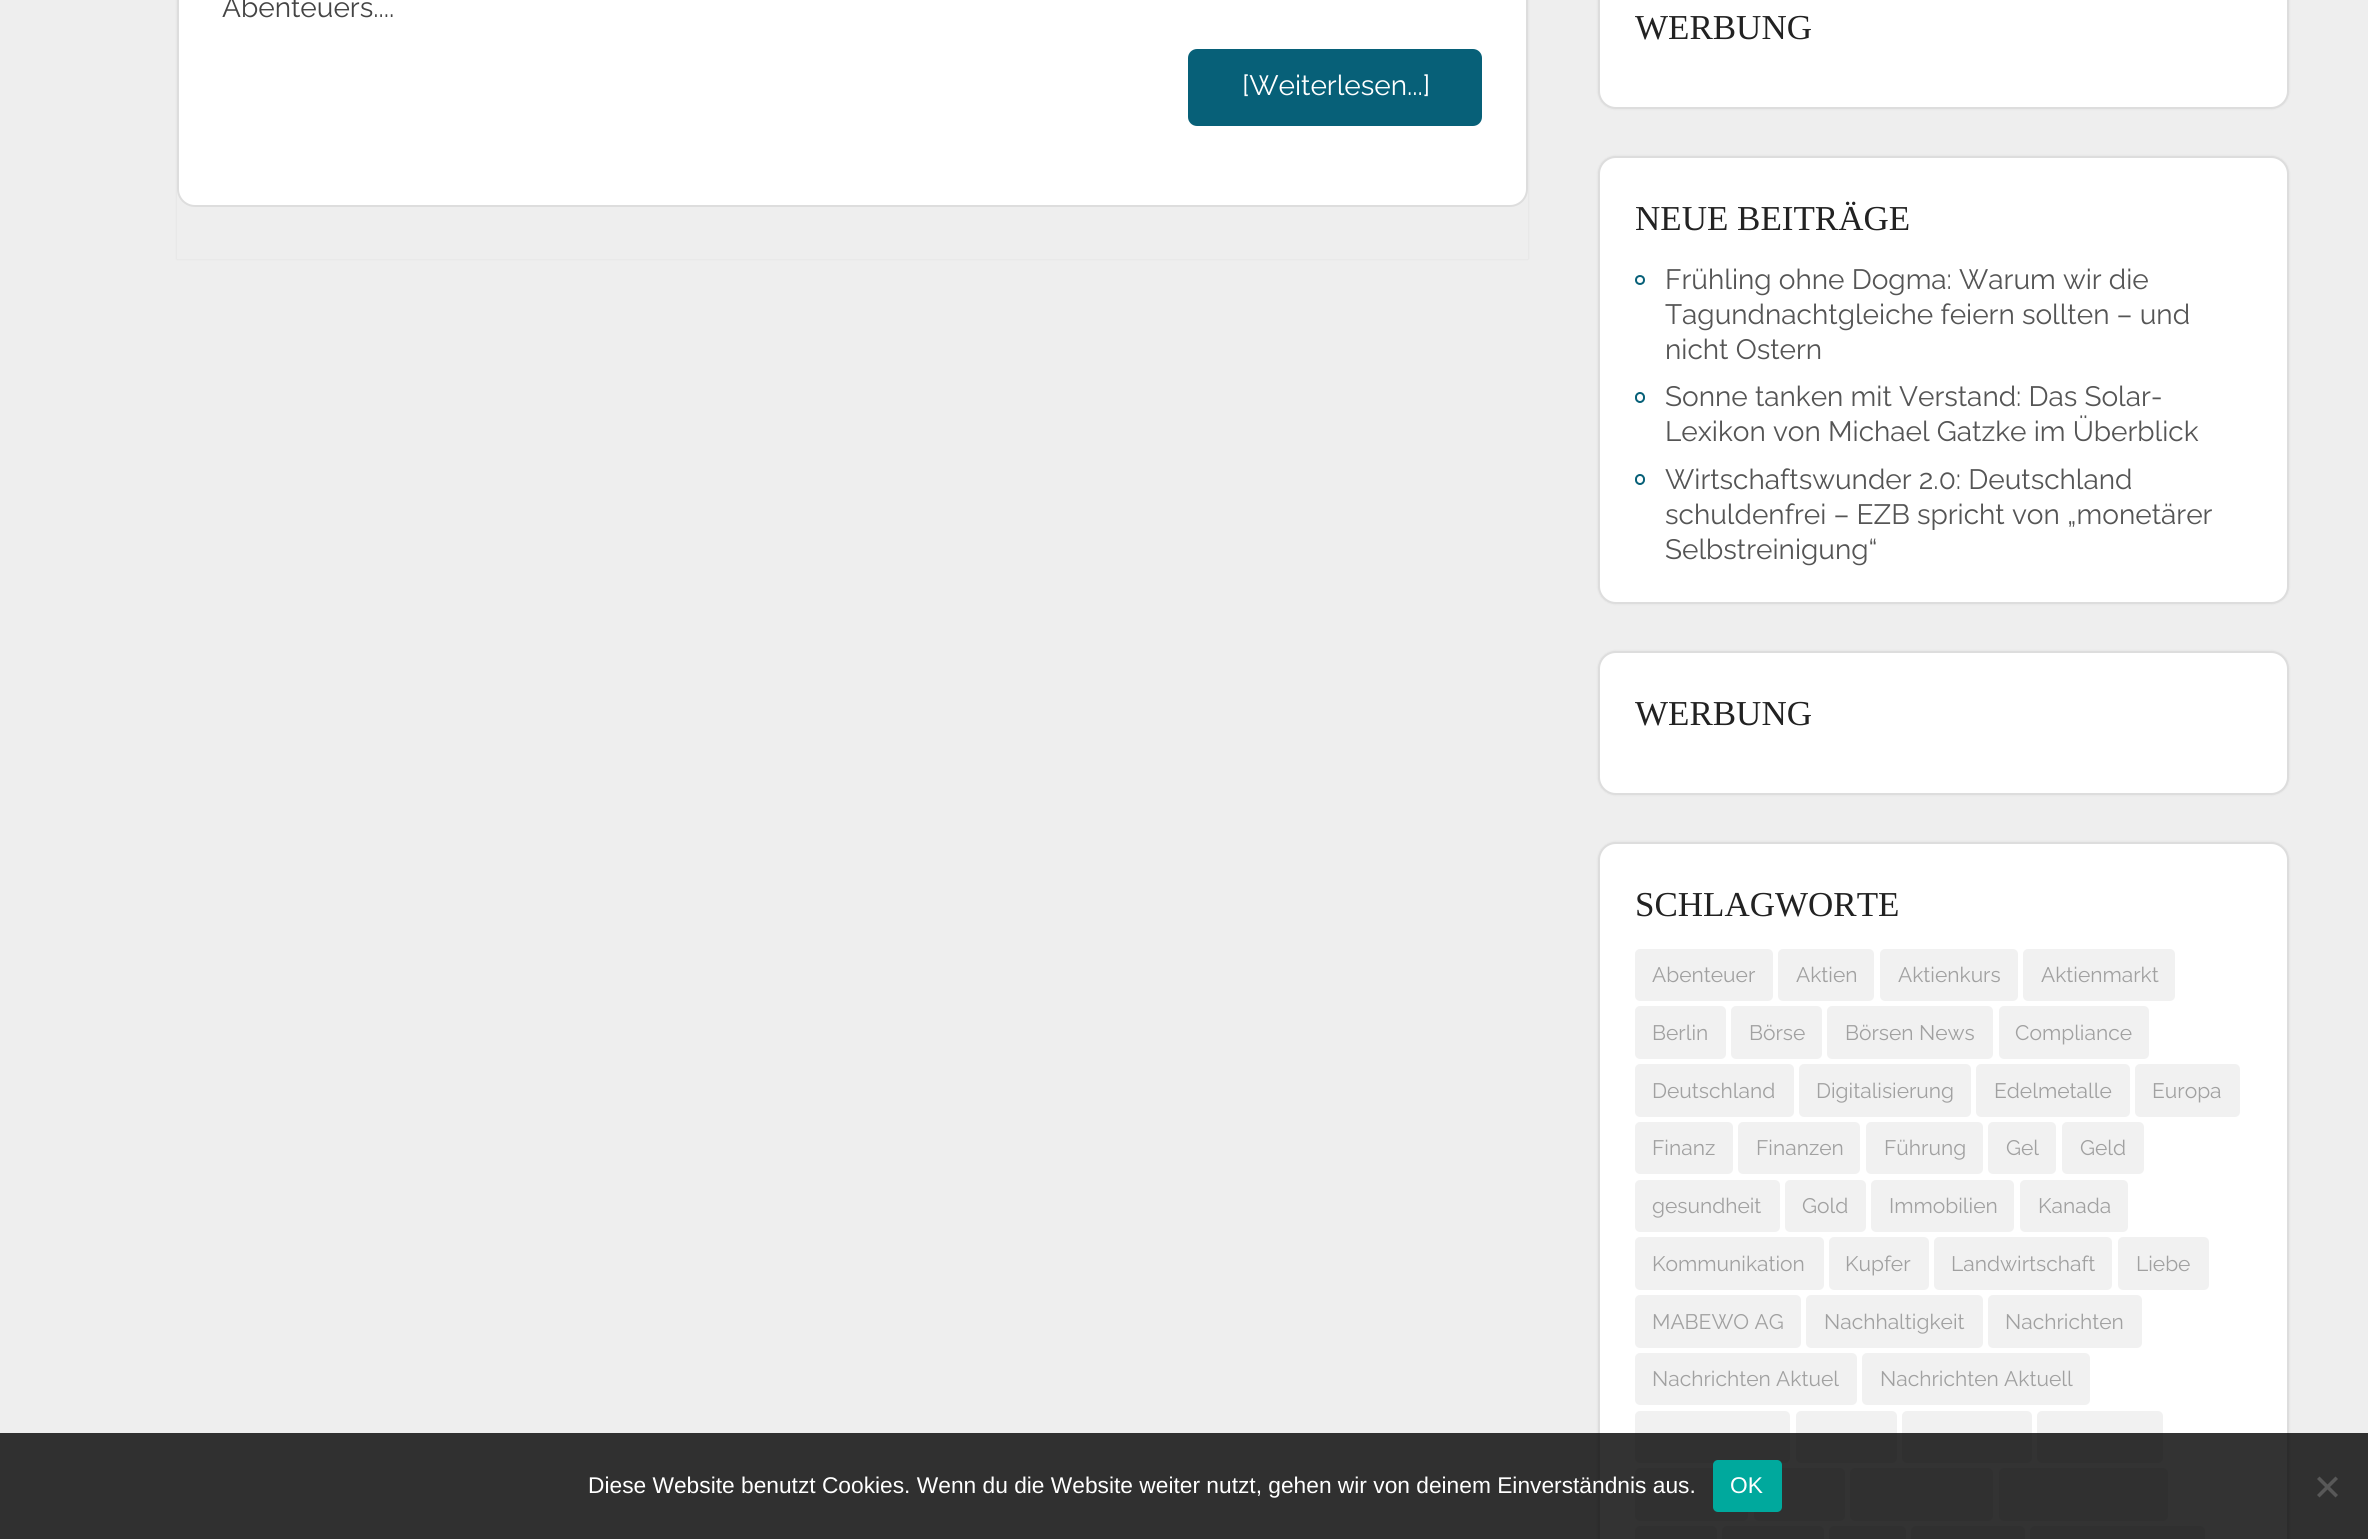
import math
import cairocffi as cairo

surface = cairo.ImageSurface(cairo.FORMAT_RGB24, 2368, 1539)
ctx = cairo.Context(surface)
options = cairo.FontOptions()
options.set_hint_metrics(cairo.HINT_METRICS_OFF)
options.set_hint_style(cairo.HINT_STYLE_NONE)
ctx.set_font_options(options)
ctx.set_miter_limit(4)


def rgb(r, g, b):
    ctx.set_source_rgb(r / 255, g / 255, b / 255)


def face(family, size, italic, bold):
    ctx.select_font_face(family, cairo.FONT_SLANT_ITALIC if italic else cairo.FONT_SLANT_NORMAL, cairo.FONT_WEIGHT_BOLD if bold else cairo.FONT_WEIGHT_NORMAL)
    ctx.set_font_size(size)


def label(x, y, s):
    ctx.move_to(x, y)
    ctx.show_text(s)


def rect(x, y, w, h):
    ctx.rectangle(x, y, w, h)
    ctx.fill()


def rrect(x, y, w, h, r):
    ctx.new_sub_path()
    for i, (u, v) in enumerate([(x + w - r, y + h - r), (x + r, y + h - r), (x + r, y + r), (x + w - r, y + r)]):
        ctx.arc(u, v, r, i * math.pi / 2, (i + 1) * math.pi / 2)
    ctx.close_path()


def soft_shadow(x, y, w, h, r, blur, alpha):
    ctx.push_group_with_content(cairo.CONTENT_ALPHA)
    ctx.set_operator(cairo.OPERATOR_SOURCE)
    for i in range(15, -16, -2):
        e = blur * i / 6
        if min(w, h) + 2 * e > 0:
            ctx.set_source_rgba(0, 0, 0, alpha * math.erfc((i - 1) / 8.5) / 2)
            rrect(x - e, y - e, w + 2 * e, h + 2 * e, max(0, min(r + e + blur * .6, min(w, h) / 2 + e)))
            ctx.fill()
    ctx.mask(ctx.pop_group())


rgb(238, 238, 238)
ctx.paint()
rgb(50, 50, 50)
soft_shadow(177, -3, 1351, 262, 0, 1, 0.1)
rgb(238, 238, 238)
rect(177, 189, 1351, 70)
rgb(255, 255, 255)
rrect(178, -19, 1349, 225, 17)
ctx.fill_preserve()
rgb(221, 221, 221)
ctx.stroke()
face('Raleway', 28, 0, 0)
rgb(68, 68, 68)
label(222, 17, 'Abenteuers....')
rgb(7, 96, 120)
rrect(1188, 49, 294, 77, 9)
ctx.fill()
rgb(255, 255, 255)
label(1242, 95, '[Weiterlesen...]')
rgb(50, 50, 50)
soft_shadow(1598, -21, 691, 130, 18, 1, 0.1)
rgb(255, 255, 255)
rrect(1599, -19, 689, 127, 17)
ctx.fill_preserve()
rgb(221, 221, 221)
ctx.stroke()
face('Liberation Serif', 35, 0, 0)
rgb(34, 34, 34)
label(1635, 39, 'WERBUNG')
rgb(50, 50, 50)
soft_shadow(1598, 156, 691, 448, 18, 1, 0.1)
rgb(255, 255, 255)
rrect(1599, 157, 689, 446, 17)
ctx.fill_preserve()
rgb(221, 221, 221)
ctx.stroke()
rgb(34, 34, 34)
label(1635, 230, 'NEUE BEITRÄGE')
ctx.new_path()
ctx.arc(1640, 280, 4, 0, 2 * math.pi)
rgb(7, 96, 120)
ctx.stroke()
face('Raleway', 28, 0, 0)
rgb(85, 85, 85)
label(1665, 289, 'Frühling ohne Dogma: Warum wir die')
label(1665, 324, 'Tagundnachtgleiche feiern sollten – und')
label(1665, 359, 'nicht Ostern')
rrect(1636, 393, 8, 9, 4)
rgb(7, 96, 120)
ctx.stroke()
rgb(85, 85, 85)
label(1665, 406, 'Sonne tanken mit Verstand: Das Solar-')
label(1665, 441, 'Lexikon von Michael Gatzke im Überblick')
rrect(1636, 475, 8, 9, 4)
rgb(7, 96, 120)
ctx.stroke()
rgb(85, 85, 85)
label(1665, 489, 'Wirtschaftswunder 2.0: Deutschland')
label(1665, 524, 'schuldenfrei – EZB spricht von „monetärer')
label(1665, 559, 'Selbstreinigung“')
rgb(50, 50, 50)
soft_shadow(1598, 651, 691, 144, 18, 1, 0.1)
rgb(255, 255, 255)
rrect(1599, 652, 689, 142, 17)
ctx.fill_preserve()
rgb(221, 221, 221)
ctx.stroke()
face('Liberation Serif', 35, 0, 0)
rgb(34, 34, 34)
label(1635, 725, 'WERBUNG')
rgb(50, 50, 50)
soft_shadow(1598, 842, 691, 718, 18, 1, 0.1)
rgb(255, 255, 255)
rrect(1599, 843, 689, 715, 17)
ctx.fill_preserve()
rgb(221, 221, 221)
ctx.stroke()
rgb(34, 34, 34)
label(1635, 916, 'SCHLAGWORTE')
rgb(241, 241, 241)
rrect(1635, 949, 138, 52, 5)
ctx.fill()
face('Raleway', 21, 0, 0)
rgb(161, 161, 161)
label(1652, 982, 'Abenteuer')
rgb(241, 241, 241)
rrect(1778, 949, 96, 52, 5)
ctx.fill()
rgb(161, 161, 161)
label(1796, 982, 'Aktien')
rgb(241, 241, 241)
rrect(1880, 949, 138, 52, 5)
ctx.fill()
rgb(161, 161, 161)
label(1898, 982, 'Aktienkurs')
rgb(241, 241, 241)
rrect(2023, 949, 152, 52, 5)
ctx.fill()
rgb(161, 161, 161)
label(2041, 982, 'Aktienmarkt')
rgb(241, 241, 241)
rrect(1635, 1006, 91, 53, 5)
ctx.fill()
rgb(161, 161, 161)
label(1652, 1040, 'Berlin')
rgb(241, 241, 241)
rrect(1731, 1006, 91, 53, 5)
ctx.fill()
rgb(161, 161, 161)
label(1749, 1040, 'Börse')
rgb(241, 241, 241)
rrect(1827, 1006, 166, 53, 5)
ctx.fill()
rgb(161, 161, 161)
label(1845, 1040, 'Börsen News')
rgb(241, 241, 241)
rrect(1999, 1006, 150, 53, 5)
ctx.fill()
rgb(161, 161, 161)
label(2015, 1040, 'Compliance')
rgb(241, 241, 241)
rrect(1635, 1064, 159, 53, 5)
ctx.fill()
rgb(161, 161, 161)
label(1652, 1098, 'Deutschland')
rgb(241, 241, 241)
rrect(1799, 1064, 172, 53, 5)
ctx.fill()
rgb(161, 161, 161)
label(1816, 1098, 'Digitalisierung')
rgb(241, 241, 241)
rrect(1976, 1064, 154, 53, 5)
ctx.fill()
rgb(161, 161, 161)
label(1994, 1098, 'Edelmetalle')
rgb(241, 241, 241)
rrect(2135, 1064, 105, 53, 5)
ctx.fill()
rgb(161, 161, 161)
label(2152, 1098, 'Europa')
rgb(241, 241, 241)
rrect(1635, 1122, 98, 52, 5)
ctx.fill()
rgb(161, 161, 161)
label(1652, 1155, 'Finanz')
rgb(241, 241, 241)
rrect(1738, 1122, 122, 52, 5)
ctx.fill()
rgb(161, 161, 161)
label(1756, 1155, 'Finanzen')
rgb(241, 241, 241)
rrect(1866, 1122, 117, 52, 5)
ctx.fill()
rgb(161, 161, 161)
label(1884, 1155, 'Führung')
rgb(241, 241, 241)
rrect(1988, 1122, 68, 52, 5)
ctx.fill()
rgb(161, 161, 161)
label(2006, 1155, 'Gel')
rgb(241, 241, 241)
rrect(2062, 1122, 82, 52, 5)
ctx.fill()
rgb(161, 161, 161)
label(2080, 1155, 'Geld')
rgb(241, 241, 241)
rrect(1635, 1180, 145, 52, 5)
ctx.fill()
rgb(161, 161, 161)
label(1652, 1213, 'gesundheit')
rgb(241, 241, 241)
rrect(1785, 1180, 81, 52, 5)
ctx.fill()
rgb(161, 161, 161)
label(1802, 1213, 'Gold')
rgb(241, 241, 241)
rrect(1871, 1180, 143, 52, 5)
ctx.fill()
rgb(161, 161, 161)
label(1889, 1213, 'Immobilien')
rgb(241, 241, 241)
rrect(2020, 1180, 108, 52, 5)
ctx.fill()
rgb(161, 161, 161)
label(2038, 1213, 'Kanada')
rgb(241, 241, 241)
rrect(1635, 1237, 189, 53, 5)
ctx.fill()
rgb(161, 161, 161)
label(1652, 1271, 'Kommunikation')
rgb(241, 241, 241)
rrect(1829, 1237, 100, 53, 5)
ctx.fill()
rgb(161, 161, 161)
label(1845, 1271, 'Kupfer')
rgb(241, 241, 241)
rrect(1934, 1237, 178, 53, 5)
ctx.fill()
rgb(161, 161, 161)
label(1951, 1271, 'Landwirtschaft')
rgb(241, 241, 241)
rrect(2118, 1237, 91, 53, 5)
ctx.fill()
rgb(161, 161, 161)
label(2136, 1271, 'Liebe')
rgb(241, 241, 241)
rrect(1635, 1295, 166, 53, 5)
ctx.fill()
rgb(161, 161, 161)
label(1652, 1329, 'MABEWO AG')
rgb(241, 241, 241)
rrect(1806, 1295, 177, 53, 5)
ctx.fill()
rgb(161, 161, 161)
label(1824, 1329, 'Nachhaltigkeit')
rgb(241, 241, 241)
rrect(1988, 1295, 154, 53, 5)
ctx.fill()
rgb(161, 161, 161)
label(2005, 1329, 'Nachrichten')
rgb(241, 241, 241)
rrect(1635, 1353, 222, 52, 5)
ctx.fill()
rgb(161, 161, 161)
label(1652, 1386, 'Nachrichten Aktuel')
rgb(241, 241, 241)
rrect(1862, 1353, 228, 52, 5)
ctx.fill()
rgb(161, 161, 161)
label(1880, 1386, 'Nachrichten Aktuell')
rgb(241, 241, 241)
rrect(1635, 1411, 155, 52, 5)
ctx.fill()
rrect(1796, 1411, 101, 52, 5)
ctx.fill()
rrect(1902, 1411, 130, 52, 5)
ctx.fill()
rrect(2037, 1411, 126, 52, 5)
ctx.fill()
rrect(1635, 1468, 113, 53, 5)
ctx.fill()
rrect(1754, 1468, 91, 53, 5)
ctx.fill()
rrect(1850, 1468, 143, 53, 5)
ctx.fill()
rrect(1999, 1468, 169, 53, 5)
ctx.fill()
rrect(1635, 1526, 82, 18, 5)
ctx.fill()
rrect(1722, 1526, 102, 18, 5)
ctx.fill()
rrect(1829, 1526, 77, 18, 5)
ctx.fill()
rrect(1911, 1526, 114, 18, 5)
ctx.fill()
rrect(2030, 1526, 175, 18, 5)
ctx.fill()
ctx.set_source_rgba(0, 0, 0, 0.8)
rect(0, 1433, 2368, 106)
face('Liberation Sans', 22.75, 0, 0)
rgb(255, 255, 255)
label(588, 1493, 'Diese Website benutzt Cookies. Wenn du die Website weiter nutzt, gehen wir von deinem Einverständnis aus.')
rgb(0, 169, 157)
rrect(1713, 1460, 69, 52, 5)
ctx.fill()
rgb(255, 255, 255)
label(1730, 1493, 'OK')
rgb(88, 88, 88)
ctx.new_path()
ctx.move_to(2335.5, 1476.5)
ctx.line_to(2338, 1479)
ctx.line_to(2319.5, 1497.5)
ctx.line_to(2317, 1495)
ctx.close_path()
ctx.fill()
ctx.new_path()
ctx.move_to(2317, 1479)
ctx.line_to(2319.5, 1476.5)
ctx.line_to(2338, 1495)
ctx.line_to(2335.5, 1497.5)
ctx.close_path()
ctx.fill()
surface.write_to_png('render.png')
